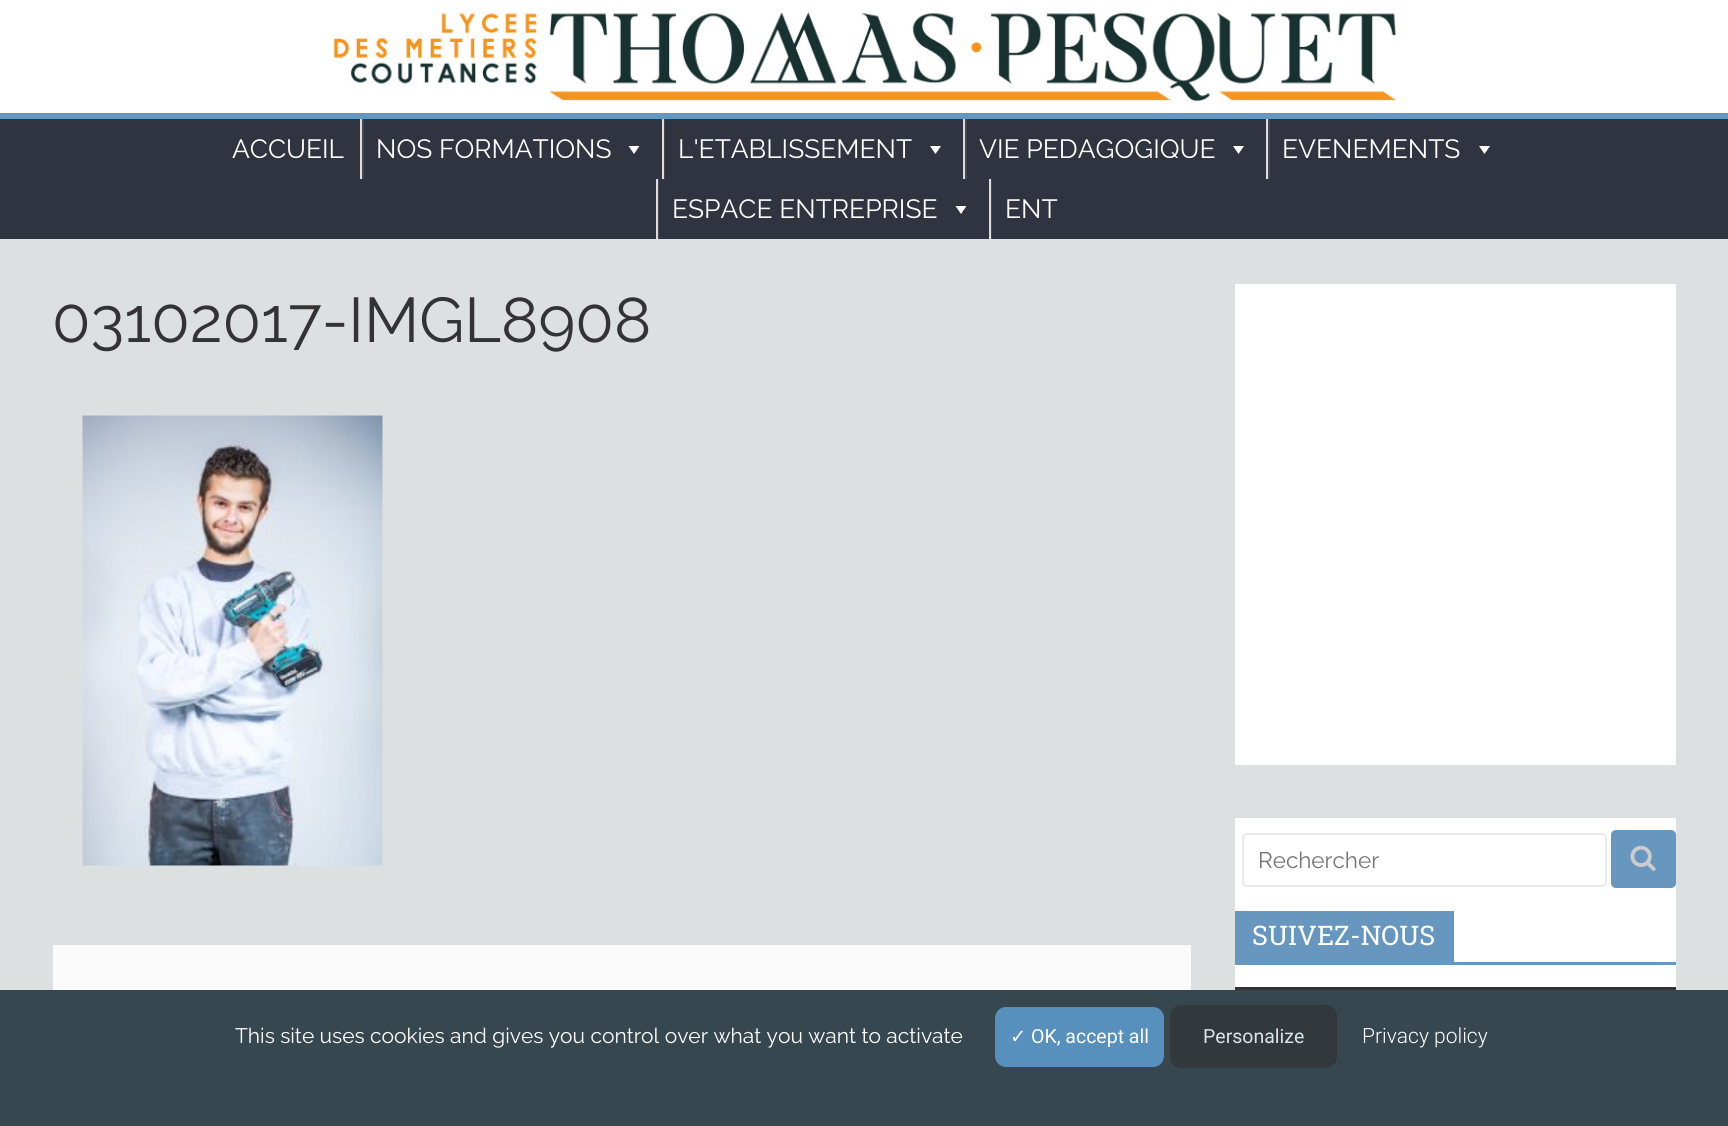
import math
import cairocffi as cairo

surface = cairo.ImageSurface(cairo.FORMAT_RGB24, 1728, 1126)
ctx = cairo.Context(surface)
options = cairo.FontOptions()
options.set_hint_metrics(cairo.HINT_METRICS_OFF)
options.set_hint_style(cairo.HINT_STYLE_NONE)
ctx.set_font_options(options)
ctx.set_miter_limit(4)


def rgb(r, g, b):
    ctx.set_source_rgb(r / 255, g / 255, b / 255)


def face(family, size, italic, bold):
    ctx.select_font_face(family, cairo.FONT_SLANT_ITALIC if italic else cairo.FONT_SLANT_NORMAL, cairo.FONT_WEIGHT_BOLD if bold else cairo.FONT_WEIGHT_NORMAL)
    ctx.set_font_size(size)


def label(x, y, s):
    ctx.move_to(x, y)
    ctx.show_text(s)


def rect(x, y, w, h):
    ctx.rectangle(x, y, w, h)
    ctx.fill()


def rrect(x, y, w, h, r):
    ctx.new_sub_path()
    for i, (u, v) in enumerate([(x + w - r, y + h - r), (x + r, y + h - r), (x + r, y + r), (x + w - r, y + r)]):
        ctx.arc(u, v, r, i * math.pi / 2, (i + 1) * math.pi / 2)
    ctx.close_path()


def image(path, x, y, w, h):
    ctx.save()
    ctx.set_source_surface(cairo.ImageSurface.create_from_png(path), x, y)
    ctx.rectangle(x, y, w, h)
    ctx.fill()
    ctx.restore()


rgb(255, 255, 255)
ctx.paint()
image('image0.png', 333, 12, 1064, 90)
rgb(48, 52, 64)
rect(0, 119, 1728, 120)
rgb(103, 150, 191)
rect(0, 113, 1728, 6)
face('Raleway Thin', 26.4, 0, 0)
rgb(255, 255, 255)
label(232, 158, 'ACCUEIL')
rgb(69, 72, 83)
rect(362, 119, 2, 60)
rgb(221, 221, 221)
rect(360, 119, 2, 60)
rgb(255, 255, 255)
label(376, 158, 'NOS FORMATIONS')
ctx.new_path()
ctx.move_to(639.5, 146)
ctx.line_to(634, 154)
ctx.line_to(628.5, 146)
ctx.close_path()
ctx.fill()
rgb(69, 72, 83)
rect(664, 119, 1, 60)
rgb(221, 221, 221)
rect(662, 119, 2, 60)
rgb(255, 255, 255)
label(678, 158, 'L\'ETABLISSEMENT')
ctx.new_path()
ctx.move_to(941, 146)
ctx.line_to(935.5, 154)
ctx.line_to(930, 146)
ctx.close_path()
ctx.fill()
rgb(69, 72, 83)
rect(965, 119, 2, 60)
rgb(221, 221, 221)
rect(963, 119, 2, 60)
rgb(255, 255, 255)
label(979, 158, 'VIE PEDAGOGIQUE')
ctx.new_path()
ctx.move_to(1244, 146)
ctx.line_to(1238.5, 154)
ctx.line_to(1233, 146)
ctx.close_path()
ctx.fill()
rgb(69, 72, 83)
rect(1268, 119, 2, 60)
rgb(221, 221, 221)
rect(1266, 119, 2, 60)
rgb(255, 255, 255)
label(1282, 158, 'EVENEMENTS')
ctx.new_path()
ctx.move_to(1490, 146)
ctx.line_to(1484.5, 154)
ctx.line_to(1479, 146)
ctx.close_path()
ctx.fill()
rgb(69, 72, 83)
rect(658, 179, 1, 60)
rgb(221, 221, 221)
rect(656, 179, 2, 60)
rgb(255, 255, 255)
label(672, 218, 'ESPACE ENTREPRISE')
ctx.new_path()
ctx.move_to(966.5, 206)
ctx.line_to(961, 214)
ctx.line_to(955.5, 206)
ctx.close_path()
ctx.fill()
rgb(69, 72, 83)
rect(991, 179, 1, 60)
rgb(221, 221, 221)
rect(989, 179, 2, 60)
rgb(255, 255, 255)
label(1005, 218, 'ENT')
rgb(221, 224, 224)
rect(0, 239, 1728, 751)
face('Raleway Thin', 63, 0, 0)
rgb(51, 51, 51)
label(52, 342, '03102017-IMGL8908')
image('image1.png', 82, 415, 301, 451)
rgb(251, 251, 251)
rect(53, 945, 1138, 45)
rgb(255, 255, 255)
rect(1235, 284, 441, 481)
rect(1235, 818, 441, 169)
rrect(1243, 834, 363, 52, 4)
rgb(234, 234, 234)
ctx.stroke()
face('Raleway Thin', 22.5, 0, 0)
rgb(117, 117, 117)
label(1258, 868, 'Rechercher')
rgb(103, 150, 191)
rrect(1611, 830, 65, 58, 5)
ctx.fill()
image('image2.png', 1630, 845, 26, 26)
rect(1235, 962, 441, 3)
rect(1235, 911, 219, 51)
face('Roboto Slab', 27, 0, 0)
rgb(255, 255, 255)
label(1252, 945, 'SUIVEZ-NOUS')
rgb(51, 51, 51)
rect(1235, 987, 441, 3)
rgb(55, 71, 79)
rect(0, 990, 1728, 136)
face('Raleway Thin', 21, 0, 0)
rgb(255, 255, 255)
label(235, 1043, 'This site uses cookies and gives you control over what you want to activate')
rgb(87, 144, 189)
rrect(995, 1007, 169, 60, 11)
ctx.fill()
face('DejaVu Sans', 19.5, 0, 0)
rgb(255, 255, 255)
label(1010, 1043, '✓')
face('Roboto', 19.5, 0, 0)
label(1031, 1043, 'OK, accept all')
rgb(51, 56, 60)
rrect(1170, 1005, 167, 63, 11)
ctx.fill()
rgb(216, 229, 234)
label(1203, 1043, 'Personalize')
face('Roboto Light', 21, 0, 0)
rgb(255, 255, 255)
label(1362, 1043, 'Privacy policy')
surface.write_to_png('render.png')
